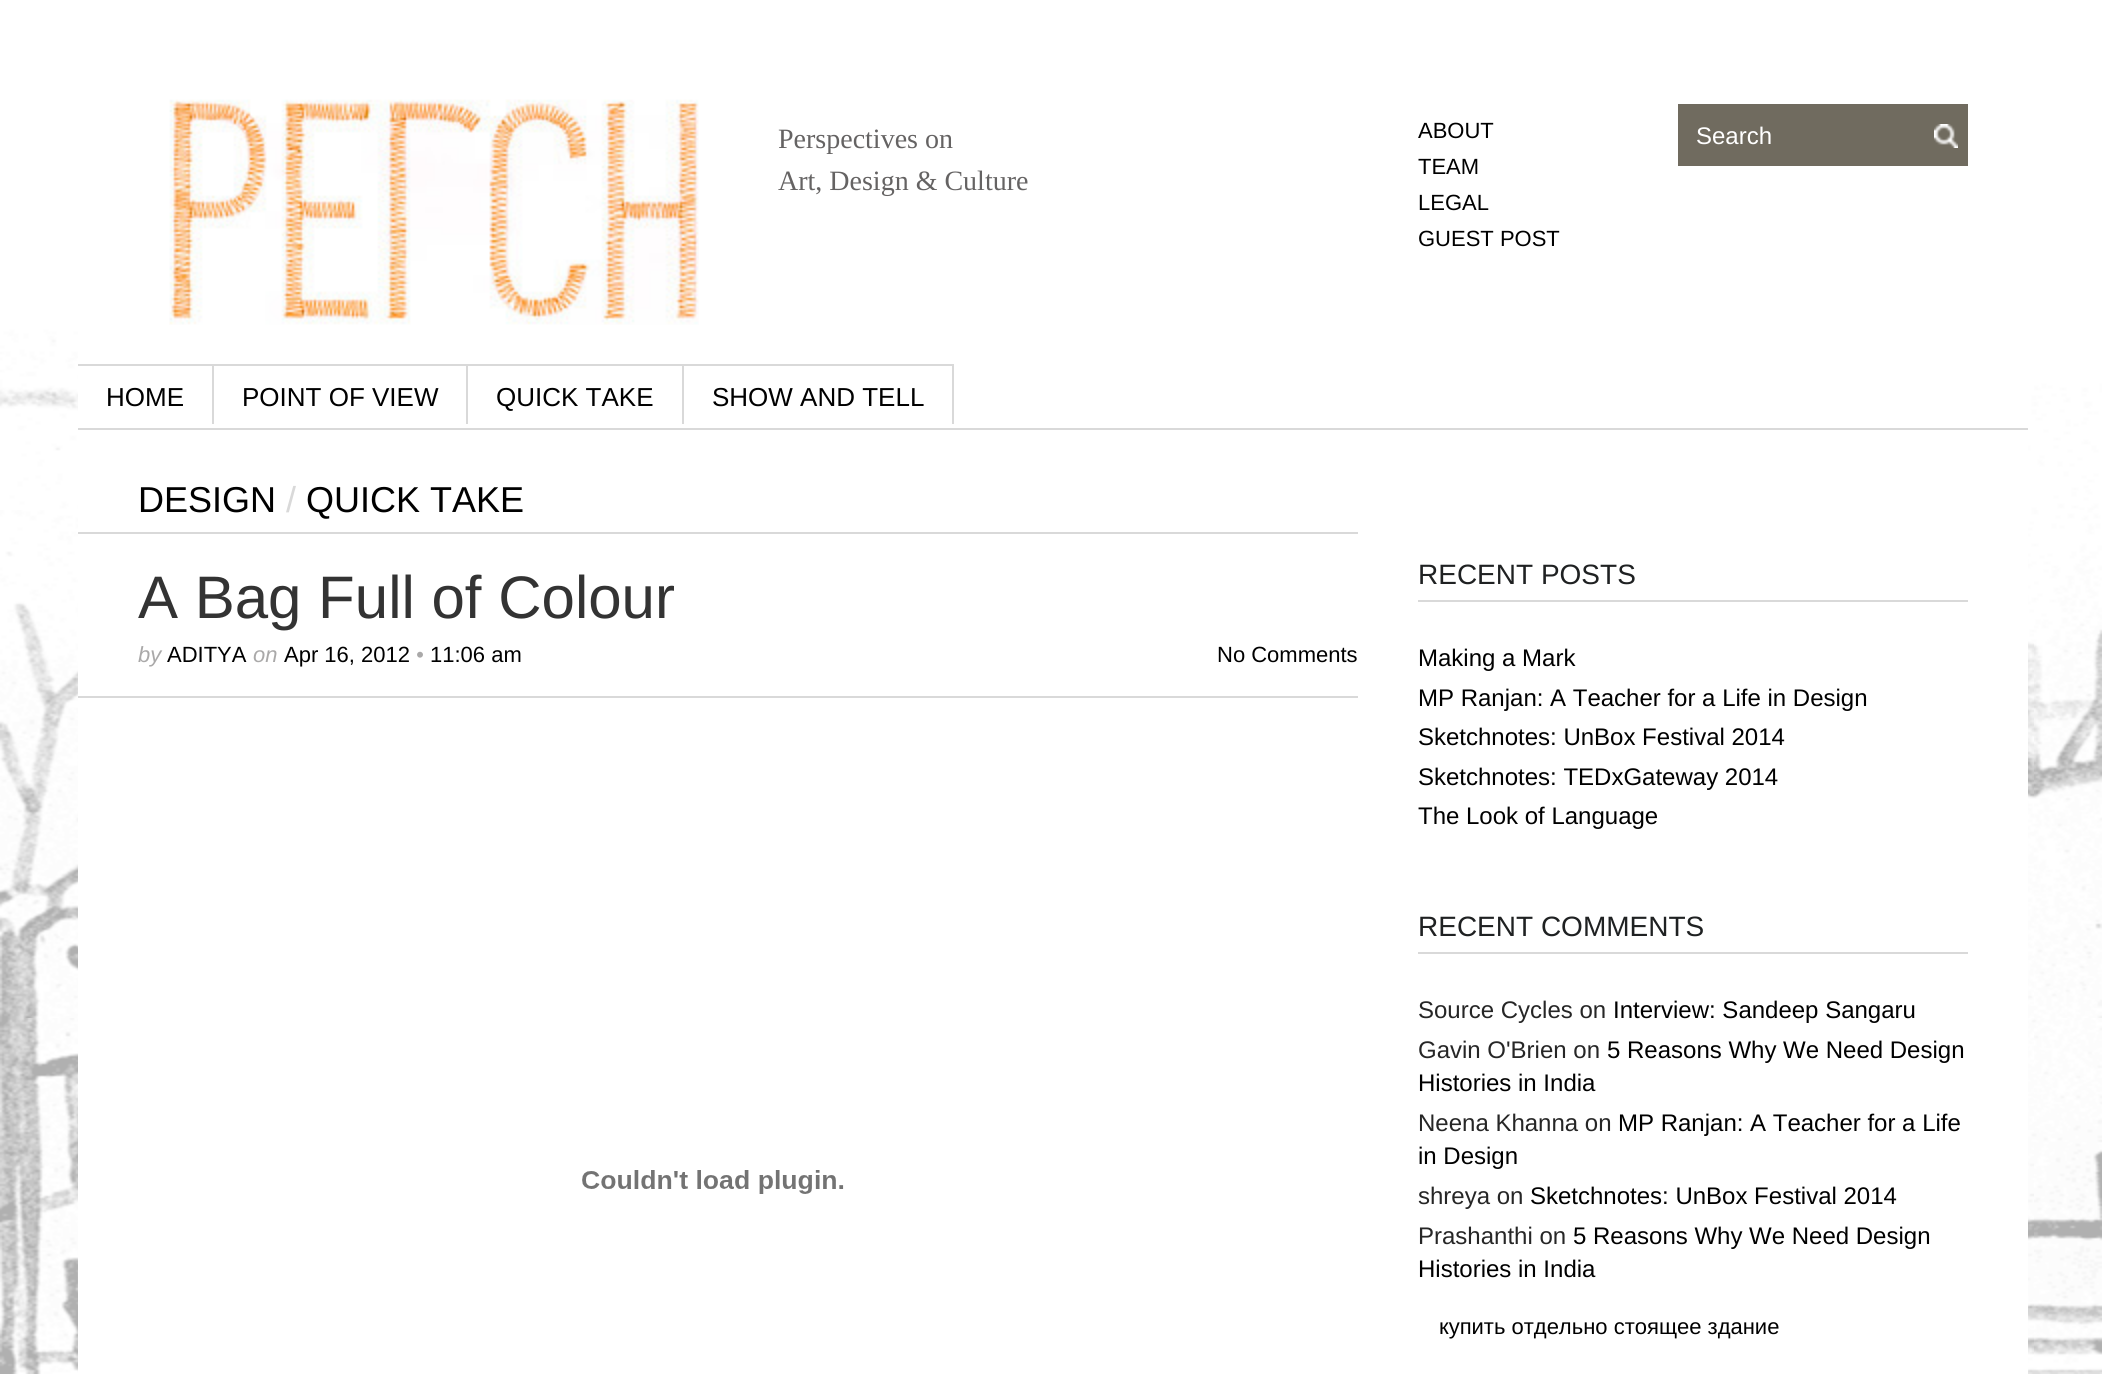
import math
import cairocffi as cairo

surface = cairo.ImageSurface(cairo.FORMAT_RGB24, 2102, 1374)
ctx = cairo.Context(surface)
options = cairo.FontOptions()
options.set_hint_metrics(cairo.HINT_METRICS_OFF)
options.set_hint_style(cairo.HINT_STYLE_NONE)
ctx.set_font_options(options)
ctx.set_miter_limit(4)


def rgb(r, g, b):
    ctx.set_source_rgb(r / 255, g / 255, b / 255)


def face(family, size, italic, bold):
    ctx.select_font_face(family, cairo.FONT_SLANT_ITALIC if italic else cairo.FONT_SLANT_NORMAL, cairo.FONT_WEIGHT_BOLD if bold else cairo.FONT_WEIGHT_NORMAL)
    ctx.set_font_size(size)


def label(x, y, s):
    ctx.move_to(x, y)
    ctx.show_text(s)


def rect(x, y, w, h):
    ctx.rectangle(x, y, w, h)
    ctx.fill()


def image(path, x, y, w, h):
    ctx.save()
    ctx.set_source_surface(cairo.ImageSurface.create_from_png(path), x, y)
    ctx.rectangle(x, y, w, h)
    ctx.fill()
    ctx.restore()


rgb(255, 255, 255)
ctx.paint()
image('image0.png', 0, 159, 2102, 1215)
rgb(255, 255, 255)
rect(78, 159, 1950, 1215)
image('image1.png', 169, 99, 530, 226)
face('Liberation Serif', 28, 0, 0)
rgb(101, 99, 99)
label(778, 148, 'Perspectives on')
label(778, 190, 'Art, Design & Culture')
face('Liberation Sans', 22, 0, 0)
rgb(0, 0, 0)
label(1418, 138, 'ABOUT')
label(1418, 174, 'TEAM')
label(1418, 210, 'LEGAL')
label(1418, 246, 'GUEST POST')
rgb(112, 107, 95)
rect(1678, 104, 290, 62)
face('Liberation Sans', 24, 0, 0)
rgb(255, 255, 255)
label(1696, 144, 'Search')
image('image2.png', 1934, 124, 24, 24)
rgb(217, 217, 217)
rect(78, 428, 1950, 2)
rect(78, 364, 876, 2)
rect(212, 364, 2, 60)
face('Liberation Sans', 26, 0, 0)
rgb(0, 0, 0)
label(106, 406, 'HOME')
rgb(217, 217, 217)
rect(466, 364, 2, 60)
rgb(0, 0, 0)
label(242, 406, 'POINT OF VIEW')
rgb(217, 217, 217)
rect(682, 364, 2, 60)
rgb(0, 0, 0)
label(496, 406, 'QUICK TAKE')
rgb(217, 217, 217)
rect(952, 364, 2, 60)
rgb(0, 0, 0)
label(712, 406, 'SHOW AND TELL')
rgb(217, 217, 217)
rect(78, 532, 1280, 2)
face('Liberation Sans', 36, 0, 0)
rgb(0, 0, 0)
label(138, 512, 'DESIGN')
rgb(217, 217, 217)
label(286, 512, '/')
rgb(0, 0, 0)
label(306, 512, 'QUICK TAKE')
rgb(217, 217, 217)
rect(78, 696, 1280, 2)
face('Liberation Sans', 60, 0, 0)
rgb(51, 51, 51)
label(138, 618, 'A Bag Full of Colour')
face('Liberation Sans', 22, 1, 0)
rgb(170, 169, 169)
label(138, 662, 'by')
face('Liberation Sans', 22, 0, 0)
rgb(0, 0, 0)
label(167, 662, 'ADITYA')
face('Liberation Sans', 22, 1, 0)
rgb(170, 169, 169)
label(253, 662, 'on')
face('Liberation Sans', 22, 0, 0)
rgb(0, 0, 0)
label(284, 662, 'Apr 16, 2012')
face('Liberation Sans', 22, 1, 0)
rgb(170, 169, 169)
label(416, 662, '•')
face('Liberation Sans', 22, 0, 0)
rgb(0, 0, 0)
label(430, 662, '11:06 am')
label(1217, 662, 'No Comments')
image('image3.png', 582, 1170, 262, 24)
rgb(217, 217, 217)
rect(1418, 600, 550, 2)
face('Liberation Sans', 28, 0, 0)
rgb(31, 33, 34)
label(1418, 584, 'RECENT POSTS')
face('Liberation Sans', 24, 0, 0)
rgb(0, 0, 0)
label(1418, 666, 'Making a Mark')
label(1418, 706, 'MP Ranjan: A Teacher for a Life in Design')
label(1418, 745, 'Sketchnotes: UnBox Festival 2014')
label(1418, 785, 'Sketchnotes: TEDxGateway 2014')
label(1418, 824, 'The Look of Language')
rgb(217, 217, 217)
rect(1418, 952, 550, 2)
face('Liberation Sans', 28, 0, 0)
rgb(31, 33, 34)
label(1418, 936, 'RECENT COMMENTS')
face('Liberation Sans', 24, 0, 0)
rgb(38, 38, 38)
label(1418, 1018, 'Source Cycles on')
rgb(0, 0, 0)
label(1613, 1018, 'Interview: Sandeep Sangaru')
rgb(38, 38, 38)
label(1418, 1058, 'Gavin O\'Brien on')
rgb(0, 0, 0)
label(1607, 1058, '5 Reasons Why We Need Design')
label(1418, 1091, 'Histories in India')
rgb(38, 38, 38)
label(1418, 1131, 'Neena Khanna on')
rgb(0, 0, 0)
label(1618, 1131, 'MP Ranjan: A Teacher for a Life')
label(1418, 1164, 'in Design')
rgb(38, 38, 38)
label(1418, 1204, 'shreya on')
rgb(0, 0, 0)
label(1530, 1204, 'Sketchnotes: UnBox Festival 2014')
rgb(38, 38, 38)
label(1418, 1244, 'Prashanthi on')
rgb(0, 0, 0)
label(1573, 1244, '5 Reasons Why We Need Design')
label(1418, 1277, 'Histories in India')
face('Liberation Sans', 22, 0, 0)
label(1439, 1334, 'купить отдельно стоящее здание')
surface.write_to_png('render.png')
